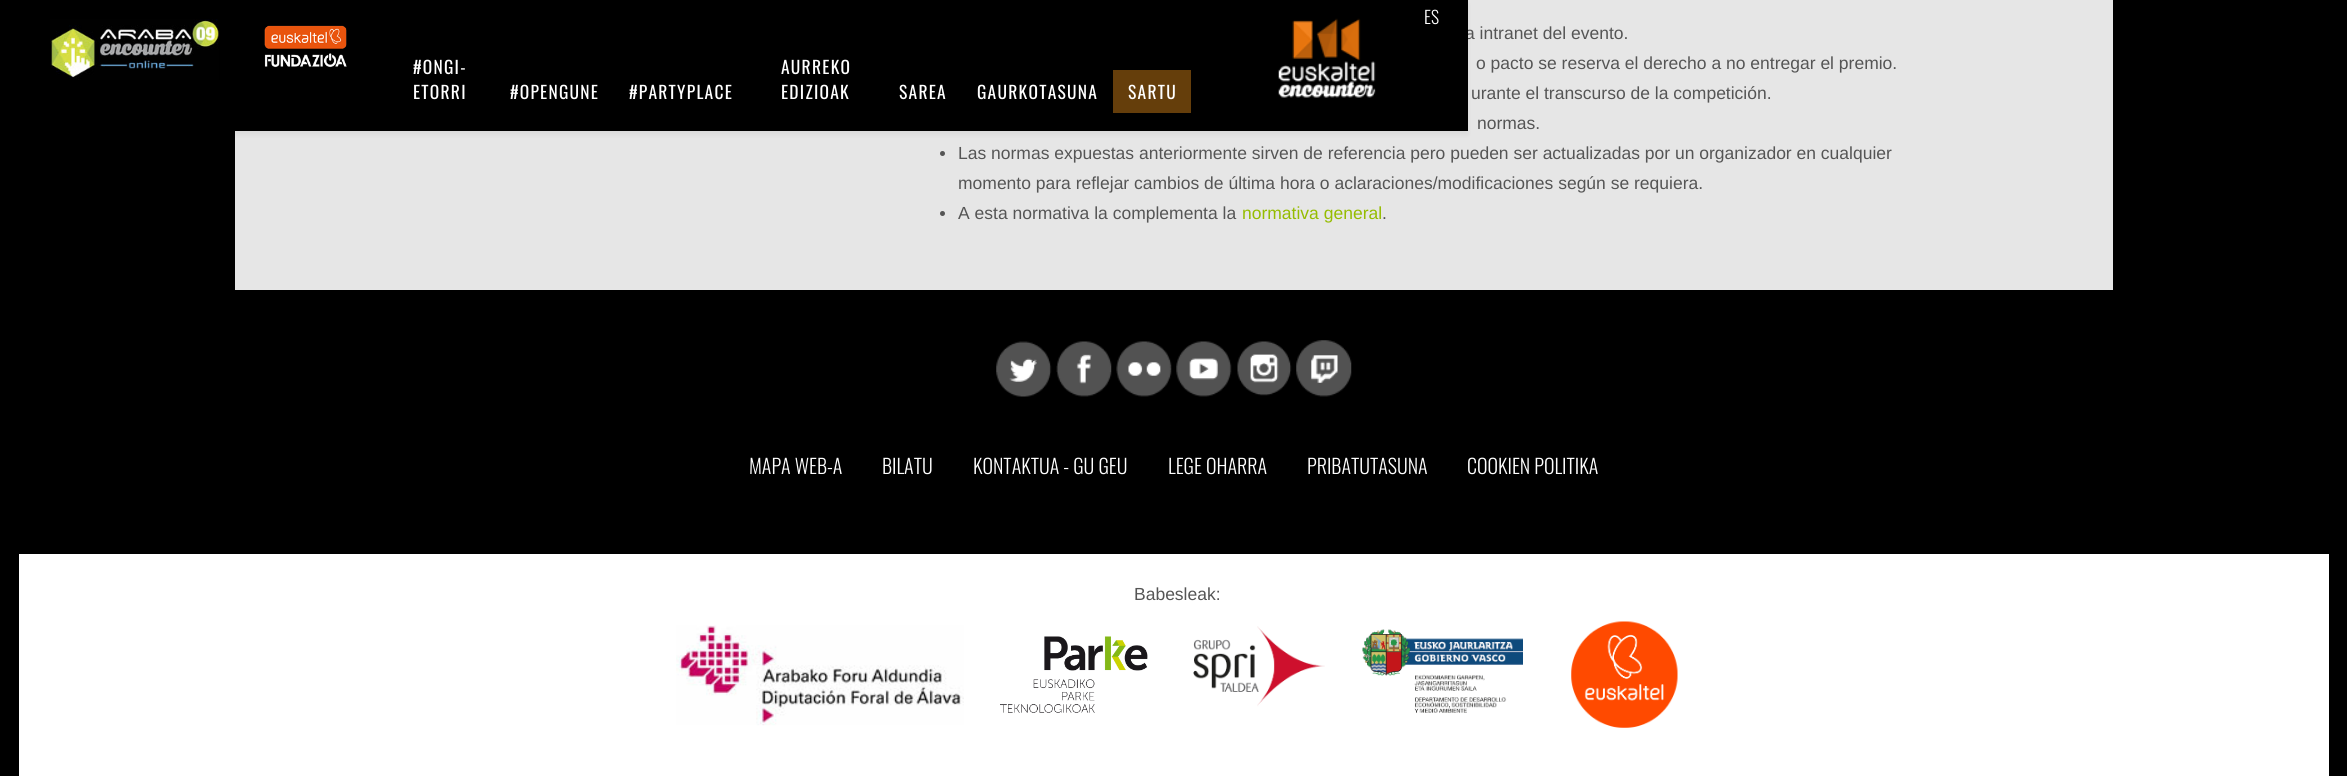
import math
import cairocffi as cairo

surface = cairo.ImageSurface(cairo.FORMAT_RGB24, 2347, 776)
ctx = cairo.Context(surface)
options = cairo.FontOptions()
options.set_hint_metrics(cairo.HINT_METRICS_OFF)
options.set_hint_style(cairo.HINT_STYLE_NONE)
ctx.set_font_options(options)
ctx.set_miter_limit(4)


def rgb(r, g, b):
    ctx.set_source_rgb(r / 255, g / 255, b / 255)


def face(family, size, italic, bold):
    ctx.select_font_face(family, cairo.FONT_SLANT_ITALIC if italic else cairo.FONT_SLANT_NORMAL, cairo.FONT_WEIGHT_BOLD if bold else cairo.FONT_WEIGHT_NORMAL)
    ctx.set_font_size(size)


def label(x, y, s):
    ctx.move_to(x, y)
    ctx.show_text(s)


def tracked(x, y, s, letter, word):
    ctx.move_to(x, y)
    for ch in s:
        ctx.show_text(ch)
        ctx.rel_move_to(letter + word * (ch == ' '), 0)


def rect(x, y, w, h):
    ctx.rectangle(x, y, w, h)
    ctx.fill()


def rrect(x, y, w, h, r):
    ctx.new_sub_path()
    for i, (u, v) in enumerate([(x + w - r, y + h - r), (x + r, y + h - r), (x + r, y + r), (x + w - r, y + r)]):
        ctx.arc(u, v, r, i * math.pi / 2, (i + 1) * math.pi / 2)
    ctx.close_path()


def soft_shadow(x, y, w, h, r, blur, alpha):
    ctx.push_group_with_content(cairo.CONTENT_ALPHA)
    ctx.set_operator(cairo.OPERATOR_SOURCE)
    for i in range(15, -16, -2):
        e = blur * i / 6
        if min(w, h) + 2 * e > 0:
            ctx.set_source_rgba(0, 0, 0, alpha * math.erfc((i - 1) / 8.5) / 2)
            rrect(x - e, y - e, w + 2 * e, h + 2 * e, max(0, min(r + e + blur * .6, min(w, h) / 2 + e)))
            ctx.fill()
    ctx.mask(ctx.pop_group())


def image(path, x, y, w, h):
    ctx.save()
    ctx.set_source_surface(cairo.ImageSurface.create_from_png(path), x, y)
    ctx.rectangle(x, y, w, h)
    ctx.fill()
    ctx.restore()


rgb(0, 0, 0)
ctx.paint()
rgb(230, 230, 230)
rect(235, 0, 1878, 290)
rgb(0, 0, 0)
soft_shadow(0, 4, 1468, 131, 0, 2, 0.05)
face('Liberation Sans', 17.5, 0, 0)
rgb(85, 85, 85)
label(1465, 39, 'a intranet del evento.')
rgb(0, 0, 0)
rect(235, 0, 1233, 131)
image('image0.png', 1278, 18, 98, 80)
face('Oswald Light', 17.5, 0, 0)
rgb(255, 255, 255)
label(1424, 24, 'ES')
image('image1.png', 50, 19, 169, 61)
image('image2.png', 264, 25, 83, 43)
face('Oswald', 17.5, 0, 0)
tracked(413, 74, '#ONGI-', 1.25, 0)
tracked(413, 99, 'ETORRI', 1.25, 0)
tracked(510, 99, '#OPENGUNE', 1.25, 0)
tracked(629, 99, '#PARTYPLACE', 1.25, 0)
tracked(781, 74, 'AURREKO', 1.25, 0)
tracked(781, 99, 'EDIZIOAK', 1.25, 0)
tracked(899, 99, 'SAREA', 1.25, 0)
tracked(977, 99, 'GAURKOTASUNA', 1.25, 0)
rgb(101, 62, 11)
rect(1113, 70, 78, 43)
rgb(255, 255, 255)
tracked(1128, 99, 'SARTU', 1.25, 0)
face('Liberation Sans', 17.5, 0, 0)
rgb(85, 85, 85)
label(1476, 69, 'o pacto se reserva el derecho a no entregar el premio.')
label(1471, 99, 'urante el transcurso de la competición.')
label(1477, 129, 'normas.')
ctx.new_path()
ctx.arc(942.5, 153.5, 2.5, 0, 2 * math.pi)
ctx.fill()
label(958, 159, 'Las normas expuestas anteriormente sirven de referencia pero pueden ser actualizadas por un organizador en cualquier')
label(958, 189, 'momento para reflejar cambios de última hora o aclaraciones/modificaciones según se requiera.')
ctx.new_path()
ctx.arc(942.5, 213.5, 2.5, 0, 2 * math.pi)
ctx.fill()
label(958, 219, 'A esta normativa la complementa la')
rgb(149, 188, 0)
label(1242, 219, 'normativa general')
rgb(85, 85, 85)
label(1382, 219, '.')
image('image3.png', 996, 341, 56, 56)
image('image4.png', 1056, 341, 56, 56)
image('image5.png', 1116, 341, 56, 56)
image('image6.png', 1176, 341, 56, 56)
image('image7.png', 1237, 341, 55, 55)
image('image8.png', 1296, 340, 56, 57)
face('Oswald Light', 20, 0, 0)
rgb(255, 255, 255)
label(749, 474, 'MAPA WEB-A')
label(882, 474, 'BILATU')
label(973, 474, 'KONTAKTUA - GU GEU')
label(1168, 474, 'LEGE OHARRA')
label(1307, 474, 'PRIBATUTASUNA')
label(1467, 474, 'COOKIEN POLITIKA')
rect(19, 554, 2310, 222)
face('Liberation Sans', 17.5, 0, 0)
rgb(85, 85, 85)
label(1134, 600, 'Babesleak:')
image('image9.png', 676, 625, 288, 101)
image('image10.png', 1000, 636, 148, 77)
image('image11.png', 1193, 626, 330, 87)
image('image12.png', 1571, 621, 107, 107)
surface.write_to_png('render.png')
